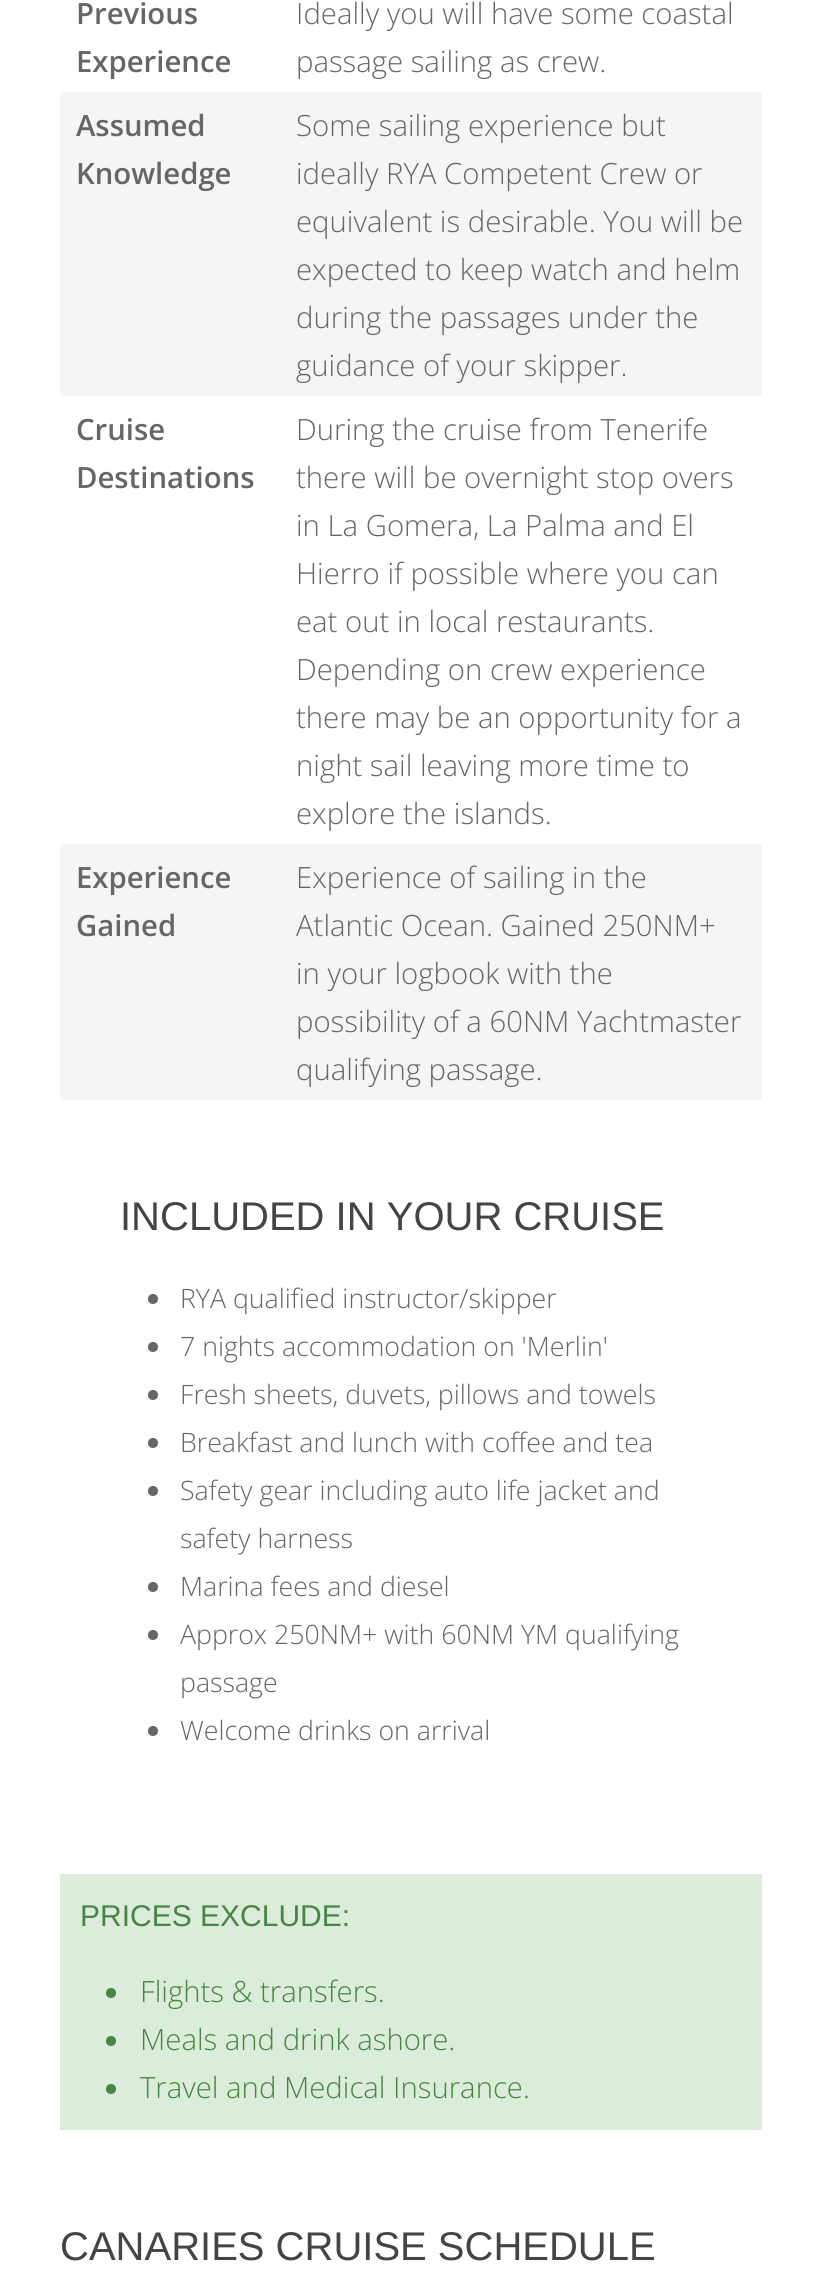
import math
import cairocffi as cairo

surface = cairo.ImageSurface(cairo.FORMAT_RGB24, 821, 2281)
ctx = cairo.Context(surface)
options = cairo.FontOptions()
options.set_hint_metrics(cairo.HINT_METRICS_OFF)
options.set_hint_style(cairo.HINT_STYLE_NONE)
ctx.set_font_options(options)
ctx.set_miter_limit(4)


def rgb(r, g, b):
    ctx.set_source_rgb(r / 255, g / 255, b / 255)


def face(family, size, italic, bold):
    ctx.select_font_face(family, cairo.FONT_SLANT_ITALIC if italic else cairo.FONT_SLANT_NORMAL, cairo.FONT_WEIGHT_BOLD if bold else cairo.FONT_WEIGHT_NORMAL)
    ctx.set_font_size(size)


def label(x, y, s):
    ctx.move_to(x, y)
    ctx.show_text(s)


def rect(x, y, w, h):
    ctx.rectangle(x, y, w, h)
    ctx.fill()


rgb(255, 255, 255)
ctx.paint()
face('Open Sans SemiBold', 29.3, 0, 0)
rgb(102, 102, 102)
label(76, 24, 'Previous')
label(76, 72, 'Experience')
face('Open Sans Light', 29.3, 0, 0)
label(296, 24, 'Ideally you will have some coastal')
label(296, 72, 'passage sailing as crew.')
rgb(245, 245, 245)
rect(60, 92, 702, 304)
face('Open Sans SemiBold', 29.3, 0, 0)
rgb(102, 102, 102)
label(76, 136, 'Assumed')
label(76, 184, 'Knowledge')
face('Open Sans Light', 29.3, 0, 0)
label(296, 136, 'Some sailing experience but')
label(296, 184, 'ideally RYA Competent Crew or')
label(296, 232, 'equivalent is desirable. You will be')
label(296, 280, 'expected to keep watch and helm')
label(296, 328, 'during the passages under the')
label(296, 376, 'guidance of your skipper.')
face('Open Sans SemiBold', 29.3, 0, 0)
label(76, 440, 'Cruise')
label(76, 488, 'Destinations')
face('Open Sans Light', 29.3, 0, 0)
label(296, 440, 'During the cruise from Tenerife')
label(296, 488, 'there will be overnight stop overs')
label(296, 536, 'in La Gomera, La Palma and El')
label(296, 584, 'Hierro if possible where you can')
label(296, 632, 'eat out in local restaurants.')
label(296, 680, 'Depending on crew experience')
label(296, 728, 'there may be an opportunity')
label(681, 728, 'for a')
label(296, 776, 'night sail leaving more time to')
label(296, 824, 'explore the islands.')
rgb(245, 245, 245)
rect(60, 844, 702, 256)
face('Open Sans SemiBold', 29.3, 0, 0)
rgb(102, 102, 102)
label(76, 888, 'Experience')
label(76, 936, 'Gained')
face('Open Sans Light', 29.3, 0, 0)
label(296, 888, 'Experience of sailing in the')
label(296, 936, 'Atlantic Ocean. Gained 250NM+')
label(296, 984, 'in your logbook with the')
label(296, 1032, 'possibility of a 60NM Yachtmaster')
label(296, 1080, 'qualifying passage.')
face('Arimo', 40, 0, 0)
rgb(68, 68, 68)
label(120, 1230, 'INCLUDED IN YOUR CRUISE')
rgb(102, 102, 102)
ctx.new_path()
ctx.arc(153, 1299, 5, 0, 2 * math.pi)
ctx.fill()
face('Open Sans Light', 26.7, 0, 0)
label(180, 1308, 'RYA qualified instructor/skipper')
ctx.new_path()
ctx.arc(153, 1347, 5, 0, 2 * math.pi)
ctx.fill()
label(180, 1356, '7 nights accommodation on \'Merlin\'')
ctx.new_path()
ctx.arc(153, 1395, 5, 0, 2 * math.pi)
ctx.fill()
label(180, 1404, 'Fresh sheets, duvets, pillows and towels')
ctx.new_path()
ctx.arc(153, 1443, 5, 0, 2 * math.pi)
ctx.fill()
label(180, 1452, 'Breakfast and lunch with coffee and tea')
ctx.new_path()
ctx.arc(153, 1491, 5, 0, 2 * math.pi)
ctx.fill()
label(180, 1500, 'Safety gear including auto life jacket and')
label(180, 1548, 'safety harness')
ctx.new_path()
ctx.arc(153, 1587, 5, 0, 2 * math.pi)
ctx.fill()
label(180, 1596, 'Marina fees and diesel')
ctx.new_path()
ctx.arc(153, 1635, 5, 0, 2 * math.pi)
ctx.fill()
label(180, 1644, 'Approx 250NM+ with 60NM YM qualifying')
label(180, 1692, 'passage')
ctx.new_path()
ctx.arc(153, 1731, 5, 0, 2 * math.pi)
ctx.fill()
label(180, 1740, 'Welcome drinks on arrival')
rgb(220, 236, 219)
rect(60, 1874, 702, 256)
face('Arimo', 30, 0, 0)
rgb(72, 132, 68)
label(80, 1926, 'PRICES EXCLUDE:')
ctx.new_path()
ctx.arc(111, 1993, 5, 0, 2 * math.pi)
ctx.fill()
face('Open Sans Light', 29.3, 0, 0)
label(140, 2002, 'Flights & transfers.')
ctx.new_path()
ctx.arc(111, 2041, 5, 0, 2 * math.pi)
ctx.fill()
label(140, 2050, 'Meals and drink ashore.')
ctx.new_path()
ctx.arc(111, 2089, 5, 0, 2 * math.pi)
ctx.fill()
label(140, 2098, 'Travel and Medical Insurance.')
face('Arimo', 40, 0, 0)
rgb(68, 68, 68)
label(60, 2260, 'CANARIES CRUISE SCHEDULE')
surface.write_to_png('render.png')
